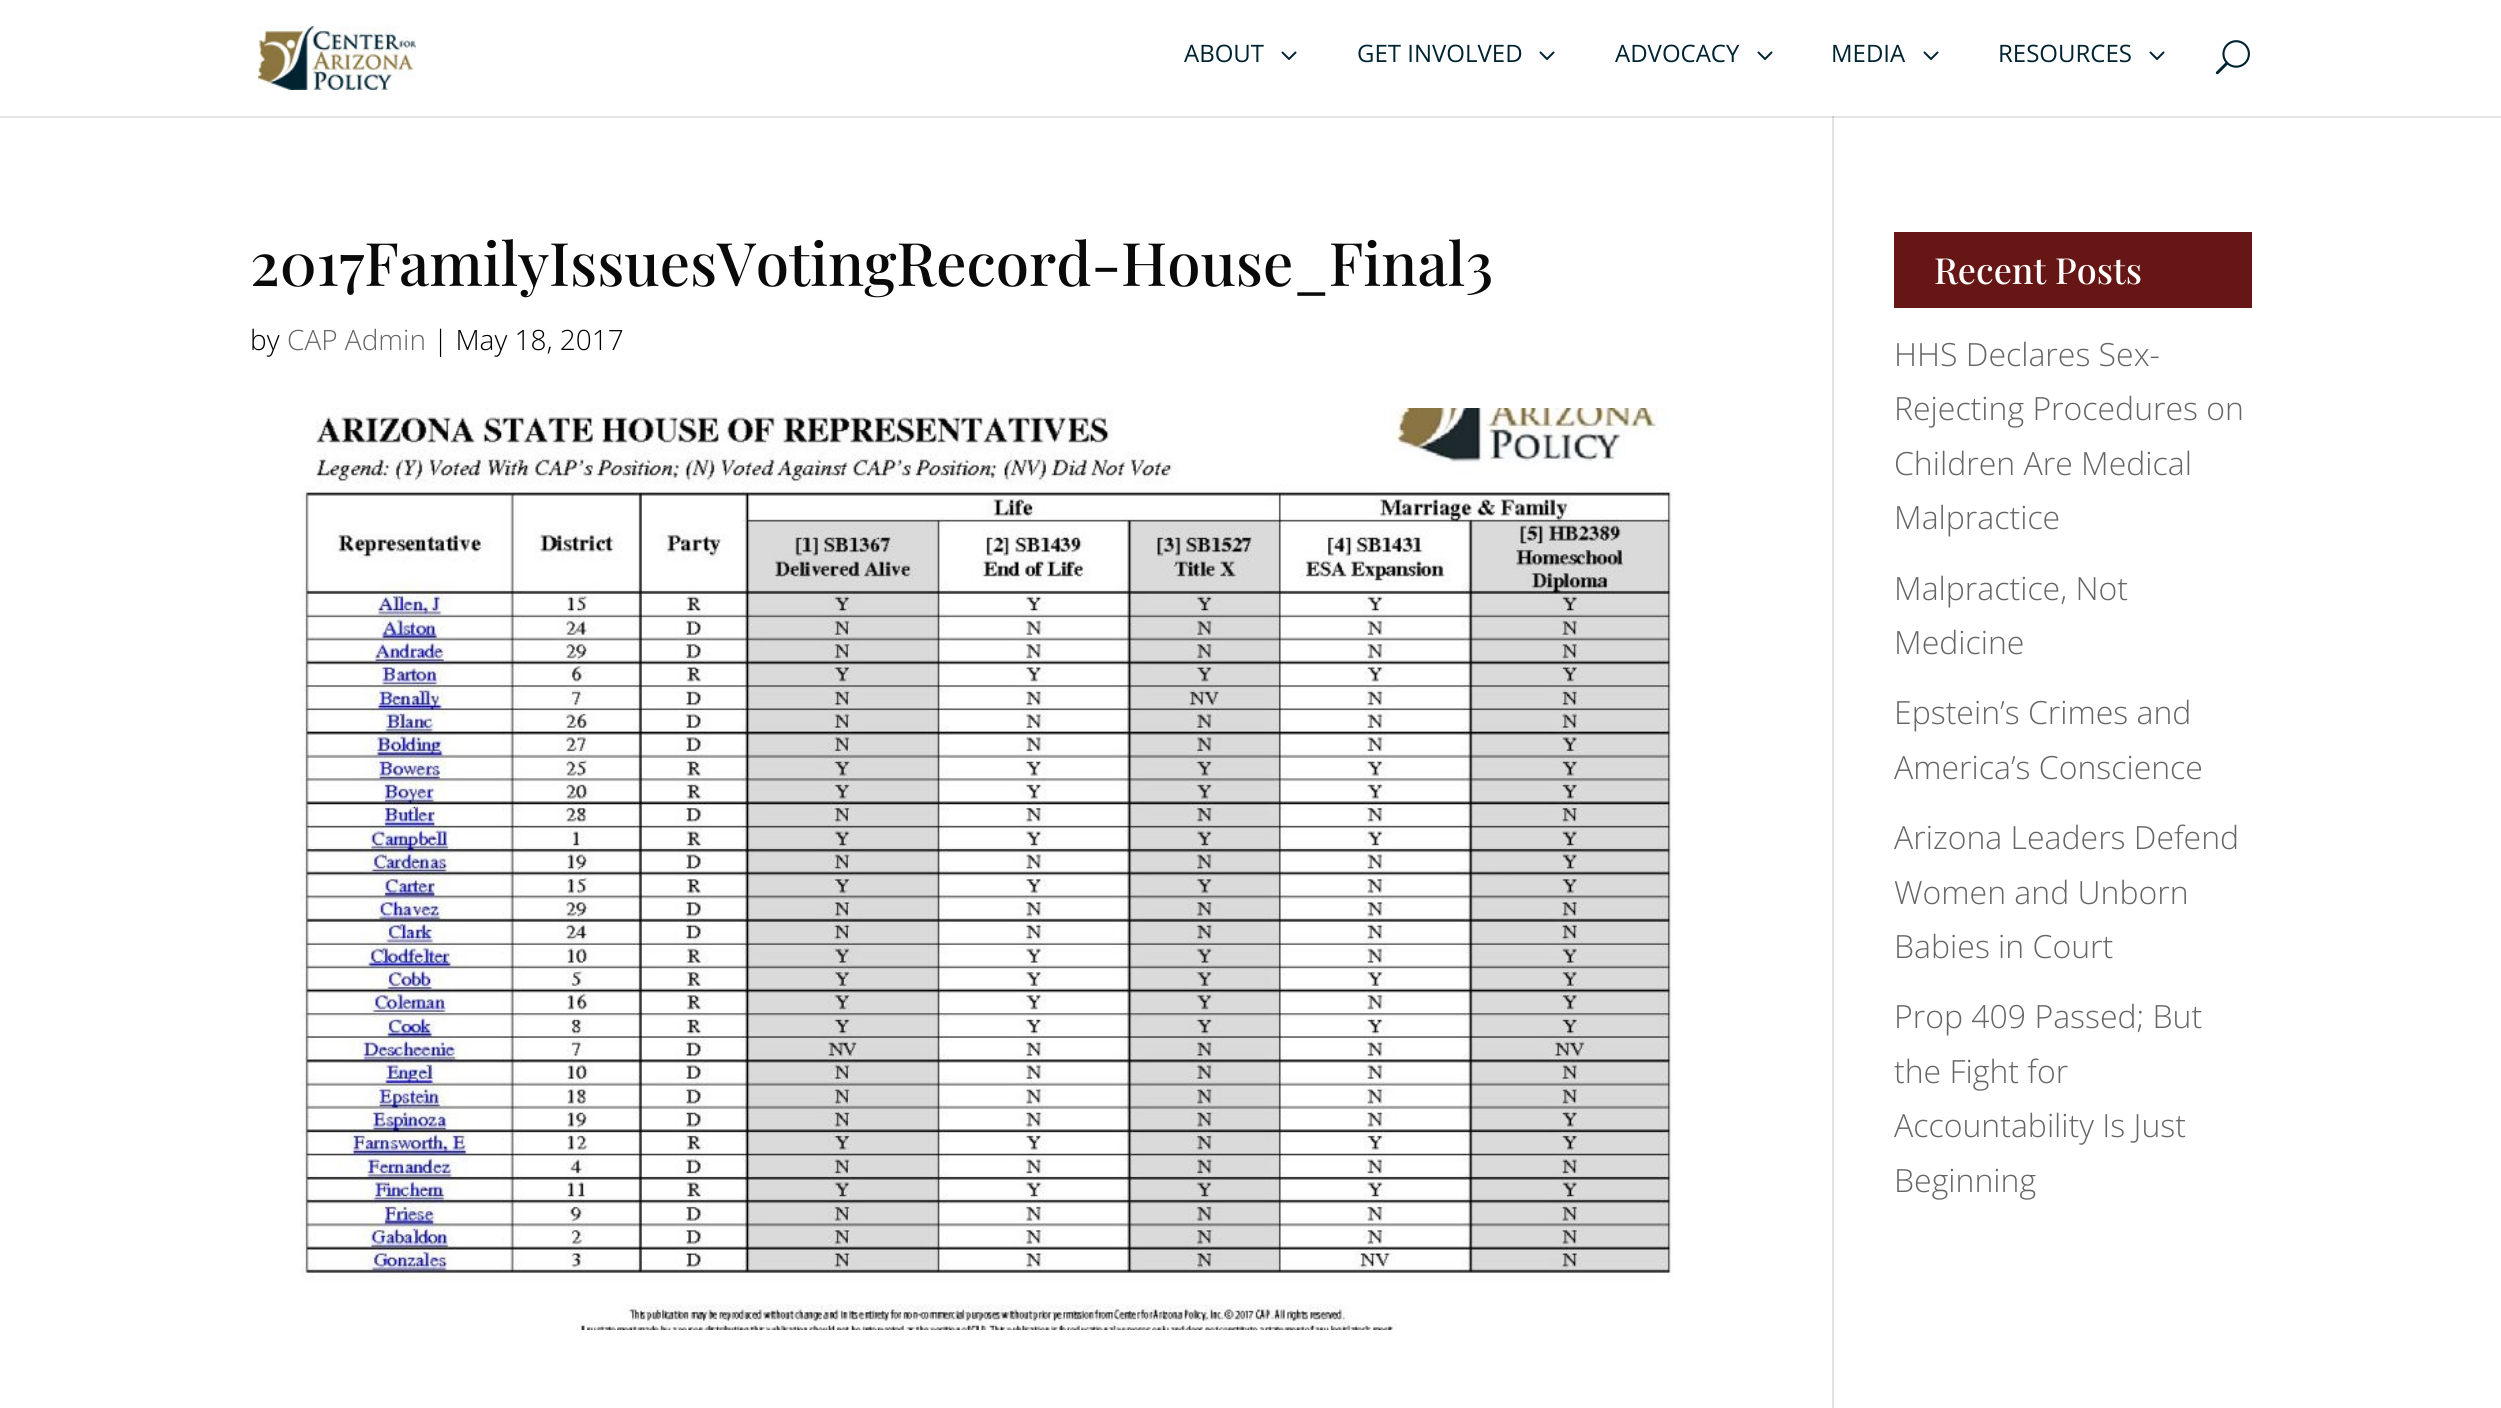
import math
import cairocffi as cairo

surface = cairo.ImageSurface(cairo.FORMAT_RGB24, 2501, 1408)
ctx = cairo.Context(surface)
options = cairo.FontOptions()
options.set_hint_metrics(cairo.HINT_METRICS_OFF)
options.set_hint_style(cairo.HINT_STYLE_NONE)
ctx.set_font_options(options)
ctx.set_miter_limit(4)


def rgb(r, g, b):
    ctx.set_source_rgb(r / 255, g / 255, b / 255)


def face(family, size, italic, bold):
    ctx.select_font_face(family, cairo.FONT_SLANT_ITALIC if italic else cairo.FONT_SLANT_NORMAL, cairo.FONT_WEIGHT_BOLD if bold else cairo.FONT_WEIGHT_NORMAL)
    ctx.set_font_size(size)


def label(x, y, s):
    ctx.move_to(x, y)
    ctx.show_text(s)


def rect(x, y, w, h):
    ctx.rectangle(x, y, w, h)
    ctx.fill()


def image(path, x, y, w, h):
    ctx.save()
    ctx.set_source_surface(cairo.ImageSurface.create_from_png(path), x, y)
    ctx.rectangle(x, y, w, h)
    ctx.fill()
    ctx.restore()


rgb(255, 255, 255)
ctx.paint()
rgb(230, 230, 230)
rect(0, 116, 2501, 2)
image('image0.png', 258, 26, 158, 64)
face('Open Sans', 24, 0, 0)
rgb(0, 35, 50)
label(1184, 62, 'ABOUT')
image('image1.png', 1281, 51, 16, 9)
label(1357, 62, 'GET INVOLVED')
image('image1.png', 1539, 51, 16, 9)
label(1615, 62, 'ADVOCACY')
image('image1.png', 1757, 51, 16, 9)
label(1831, 62, 'MEDIA')
image('image1.png', 1923, 51, 16, 9)
label(1998, 62, 'RESOURCES')
image('image1.png', 2149, 51, 16, 9)
image('image2.png', 2215, 40, 35, 35)
rgb(226, 226, 226)
rect(1832, 116, 2, 1292)
rgb(203, 203, 203)
rect(1832, 116, 2, 2)
face('Playfair Display Medium', 60, 0, 0)
rgb(10, 10, 10)
label(250, 286, '2017FamilyIssuesVotingRecord-House_Final3')
face('Open Sans Light', 28, 0, 0)
rgb(0, 0, 0)
label(250, 350, 'by')
rgb(102, 102, 102)
label(287, 350, 'CAP Admin')
rgb(0, 0, 0)
label(433, 350, '| May 18, 2017')
image('image3.png', 300, 408, 1373, 922)
rgb(103, 22, 22)
rect(1894, 232, 358, 76)
face('Playfair Display Medium', 36, 0, 0)
rgb(255, 255, 255)
label(1934, 284, 'Recent Posts')
face('Open Sans Light', 32, 0, 0)
rgb(102, 102, 102)
label(1894, 366, 'HHS Declares Sex-')
label(1894, 420, 'Rejecting Procedures on')
label(1894, 475, 'Children Are Medical')
label(1894, 529, 'Malpractice')
label(1894, 600, 'Malpractice, Not')
label(1894, 654, 'Medicine')
label(1894, 724, 'Epstein’s Crimes and')
label(1894, 779, 'America’s Conscience')
label(1894, 849, 'Arizona Leaders Defend')
label(1894, 904, 'Women and Unborn')
label(1894, 958, 'Babies in Court')
label(1894, 1028, 'Prop 409 Passed; But')
label(1894, 1083, 'the Fight for')
label(1894, 1137, 'Accountability Is Just')
label(1894, 1192, 'Beginning')
surface.write_to_png('render.png')
